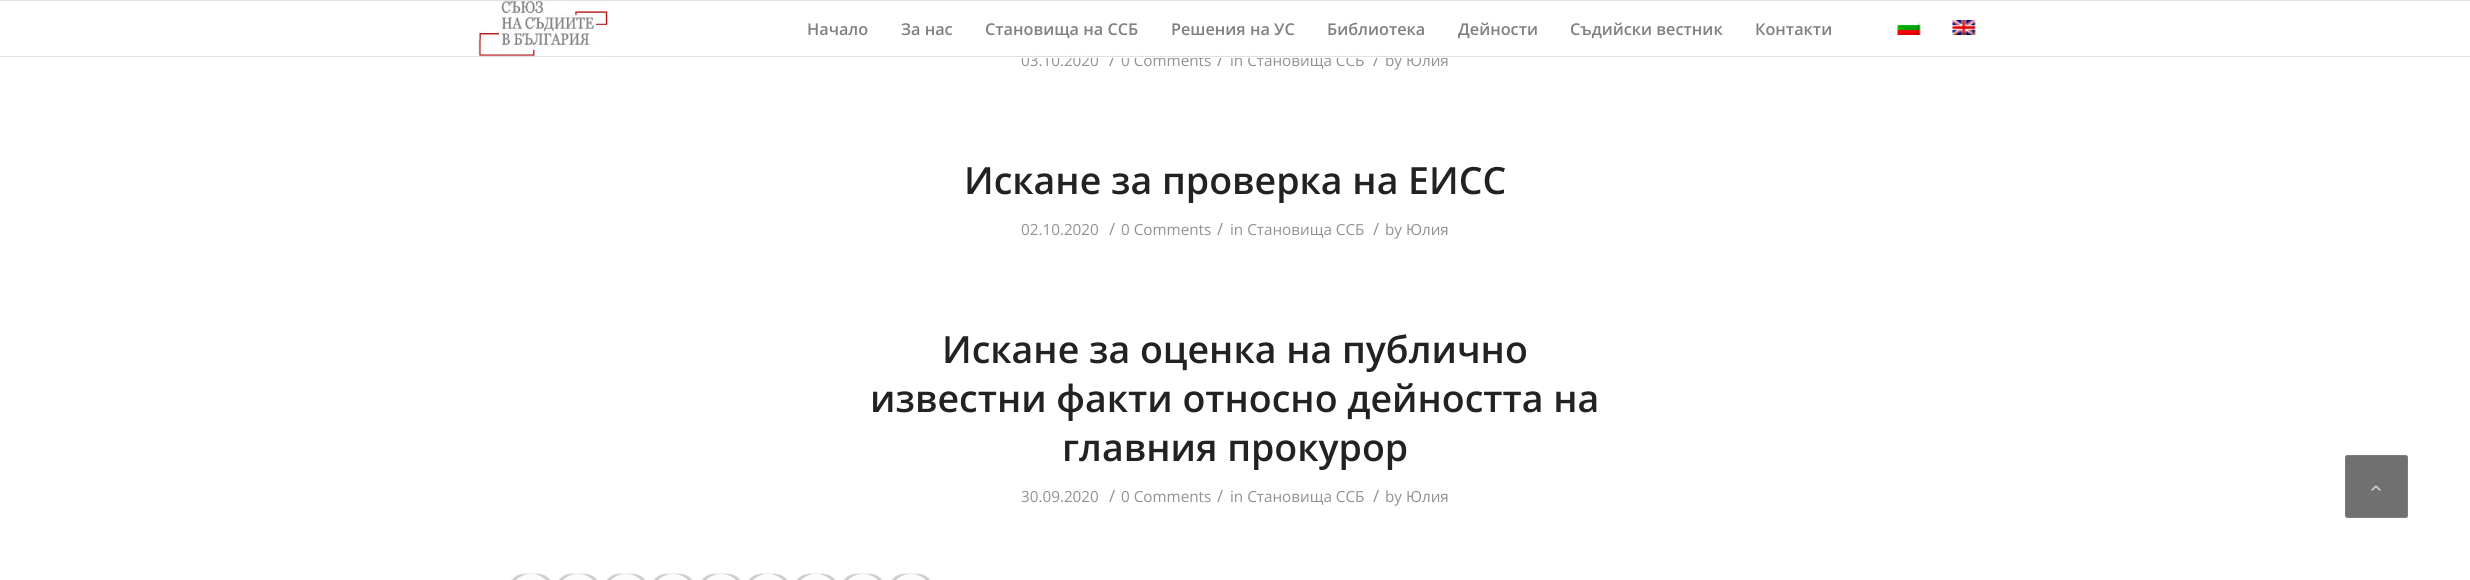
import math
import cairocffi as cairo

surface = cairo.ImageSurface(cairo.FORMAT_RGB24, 2470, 580)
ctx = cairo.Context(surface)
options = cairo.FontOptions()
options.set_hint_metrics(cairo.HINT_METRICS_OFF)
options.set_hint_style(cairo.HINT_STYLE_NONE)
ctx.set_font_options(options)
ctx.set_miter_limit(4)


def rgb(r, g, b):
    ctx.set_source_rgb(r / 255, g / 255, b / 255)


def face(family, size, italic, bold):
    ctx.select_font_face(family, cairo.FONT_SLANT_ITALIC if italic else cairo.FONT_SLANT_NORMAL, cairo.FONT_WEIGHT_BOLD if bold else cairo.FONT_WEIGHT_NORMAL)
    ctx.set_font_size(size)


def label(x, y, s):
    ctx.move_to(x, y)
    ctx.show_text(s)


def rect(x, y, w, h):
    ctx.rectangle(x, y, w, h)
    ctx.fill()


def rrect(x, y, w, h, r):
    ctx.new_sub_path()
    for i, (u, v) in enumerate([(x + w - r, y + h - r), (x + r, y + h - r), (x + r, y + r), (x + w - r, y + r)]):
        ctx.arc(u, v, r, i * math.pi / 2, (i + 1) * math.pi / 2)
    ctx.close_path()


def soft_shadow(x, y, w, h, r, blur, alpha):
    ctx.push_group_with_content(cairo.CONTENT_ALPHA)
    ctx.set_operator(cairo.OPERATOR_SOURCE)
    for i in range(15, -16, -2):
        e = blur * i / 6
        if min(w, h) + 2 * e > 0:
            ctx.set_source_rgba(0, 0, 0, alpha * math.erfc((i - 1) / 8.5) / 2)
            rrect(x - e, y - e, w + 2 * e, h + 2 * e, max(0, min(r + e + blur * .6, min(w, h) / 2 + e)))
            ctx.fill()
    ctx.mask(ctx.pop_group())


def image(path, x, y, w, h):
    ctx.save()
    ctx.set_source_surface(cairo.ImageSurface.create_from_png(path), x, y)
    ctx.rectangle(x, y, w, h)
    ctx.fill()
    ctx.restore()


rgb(255, 255, 255)
ctx.paint()
rgb(225, 225, 225)
rect(0, 0, 2470, 1)
face('Open Sans', 15.25, 0, 0)
rgb(145, 145, 145)
label(1021, 66, '03.10.2020')
face('Open Sans', 17, 0, 0)
label(1109, 66, '/')
face('Open Sans', 15.25, 0, 0)
label(1121, 66, '0 Comments')
face('Open Sans', 17, 0, 0)
label(1217, 66, '/')
face('Open Sans', 15.25, 0, 0)
label(1230, 66, 'in Становища ССБ')
face('Open Sans', 17, 0, 0)
label(1373, 66, '/')
face('Open Sans', 15.25, 0, 0)
label(1385, 66, 'by Юлия')
ctx.set_source_rgba(1, 1, 1, 0.95)
rect(1022, 54, 426, 4)
rgb(225, 225, 225)
rect(0, 56, 2470, 1)
image('image0.png', 478, 1, 130, 56)
face('Open Sans SemiBold', 16.25, 0, 0)
rgb(128, 128, 128)
label(807, 35, 'Начало')
label(901, 35, 'За нас')
label(985, 35, 'Становища на ССБ')
label(1171, 35, 'Решения на УС')
label(1327, 35, 'Библиотека')
label(1458, 35, 'Дейности')
label(1570, 35, 'Съдийски вестник')
label(1755, 35, 'Контакти')
image('image1.png', 1897, 22, 24, 13)
image('image2.png', 1952, 20, 24, 15)
face('Open Sans SemiBold', 37.5, 0, 0)
rgb(34, 34, 34)
label(964, 194, 'Искане за проверка на ЕИСС')
face('Open Sans', 15.25, 0, 0)
rgb(145, 145, 145)
label(1021, 235, '02.10.2020')
face('Open Sans', 17, 0, 0)
label(1109, 235, '/')
face('Open Sans', 15.25, 0, 0)
label(1121, 235, '0 Comments')
face('Open Sans', 17, 0, 0)
label(1217, 235, '/')
face('Open Sans', 15.25, 0, 0)
label(1230, 235, 'in Становища ССБ')
face('Open Sans', 17, 0, 0)
label(1373, 235, '/')
face('Open Sans', 15.25, 0, 0)
label(1385, 235, 'by Юлия')
face('Open Sans SemiBold', 37.5, 0, 0)
rgb(34, 34, 34)
label(942, 363, 'Искане за оценка на публично')
label(870, 412, 'известни факти относно дейността на')
label(1062, 461, 'главния прокурор')
face('Open Sans', 15.25, 0, 0)
rgb(145, 145, 145)
label(1021, 502, '30.09.2020')
face('Open Sans', 17, 0, 0)
label(1109, 502, '/')
face('Open Sans', 15.25, 0, 0)
label(1121, 502, '0 Comments')
face('Open Sans', 17, 0, 0)
label(1217, 502, '/')
face('Open Sans', 15.25, 0, 0)
label(1230, 502, 'in Становища ССБ')
face('Open Sans', 17, 0, 0)
label(1373, 502, '/')
face('Open Sans', 15.25, 0, 0)
label(1385, 502, 'by Юлия')
rgb(0, 0, 0)
soft_shadow(509, 574, 44, 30, 22, 0.5, 0.2)
rgb(252, 252, 252)
rrect(509, 574, 44, 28, 22)
ctx.fill()
rgb(0, 0, 0)
soft_shadow(556, 574, 44, 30, 22, 0.5, 0.2)
rgb(252, 252, 252)
rrect(556, 574, 44, 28, 22)
ctx.fill()
rgb(0, 0, 0)
soft_shadow(604, 574, 44, 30, 22, 0.5, 0.2)
rgb(252, 252, 252)
rrect(604, 574, 44, 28, 22)
ctx.fill()
rgb(0, 0, 0)
soft_shadow(651, 574, 44, 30, 22, 0.5, 0.2)
rgb(252, 252, 252)
rrect(651, 574, 44, 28, 22)
ctx.fill()
rgb(0, 0, 0)
soft_shadow(699, 574, 44, 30, 22, 0.5, 0.2)
rgb(252, 252, 252)
rrect(699, 574, 44, 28, 22)
ctx.fill()
rgb(0, 0, 0)
soft_shadow(746, 574, 44, 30, 22, 0.5, 0.2)
rgb(252, 252, 252)
rrect(746, 574, 44, 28, 22)
ctx.fill()
rgb(0, 0, 0)
soft_shadow(794, 574, 44, 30, 22, 0.5, 0.2)
rgb(252, 252, 252)
rrect(794, 574, 44, 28, 22)
ctx.fill()
rgb(0, 0, 0)
soft_shadow(841, 574, 44, 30, 22, 0.5, 0.2)
rgb(252, 252, 252)
rrect(841, 574, 44, 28, 22)
ctx.fill()
rgb(0, 0, 0)
soft_shadow(889, 574, 44, 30, 22, 0.5, 0.2)
rgb(252, 252, 252)
rrect(889, 574, 44, 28, 22)
ctx.fill()
rgb(112, 112, 112)
rrect(2345.5, 455.5, 62, 62, 2)
ctx.fill_preserve()
rgb(124, 124, 124)
ctx.set_line_width(1)
ctx.stroke()
image('image3.png', 2371, 485, 10, 6)
surface.write_to_png('render.png')
